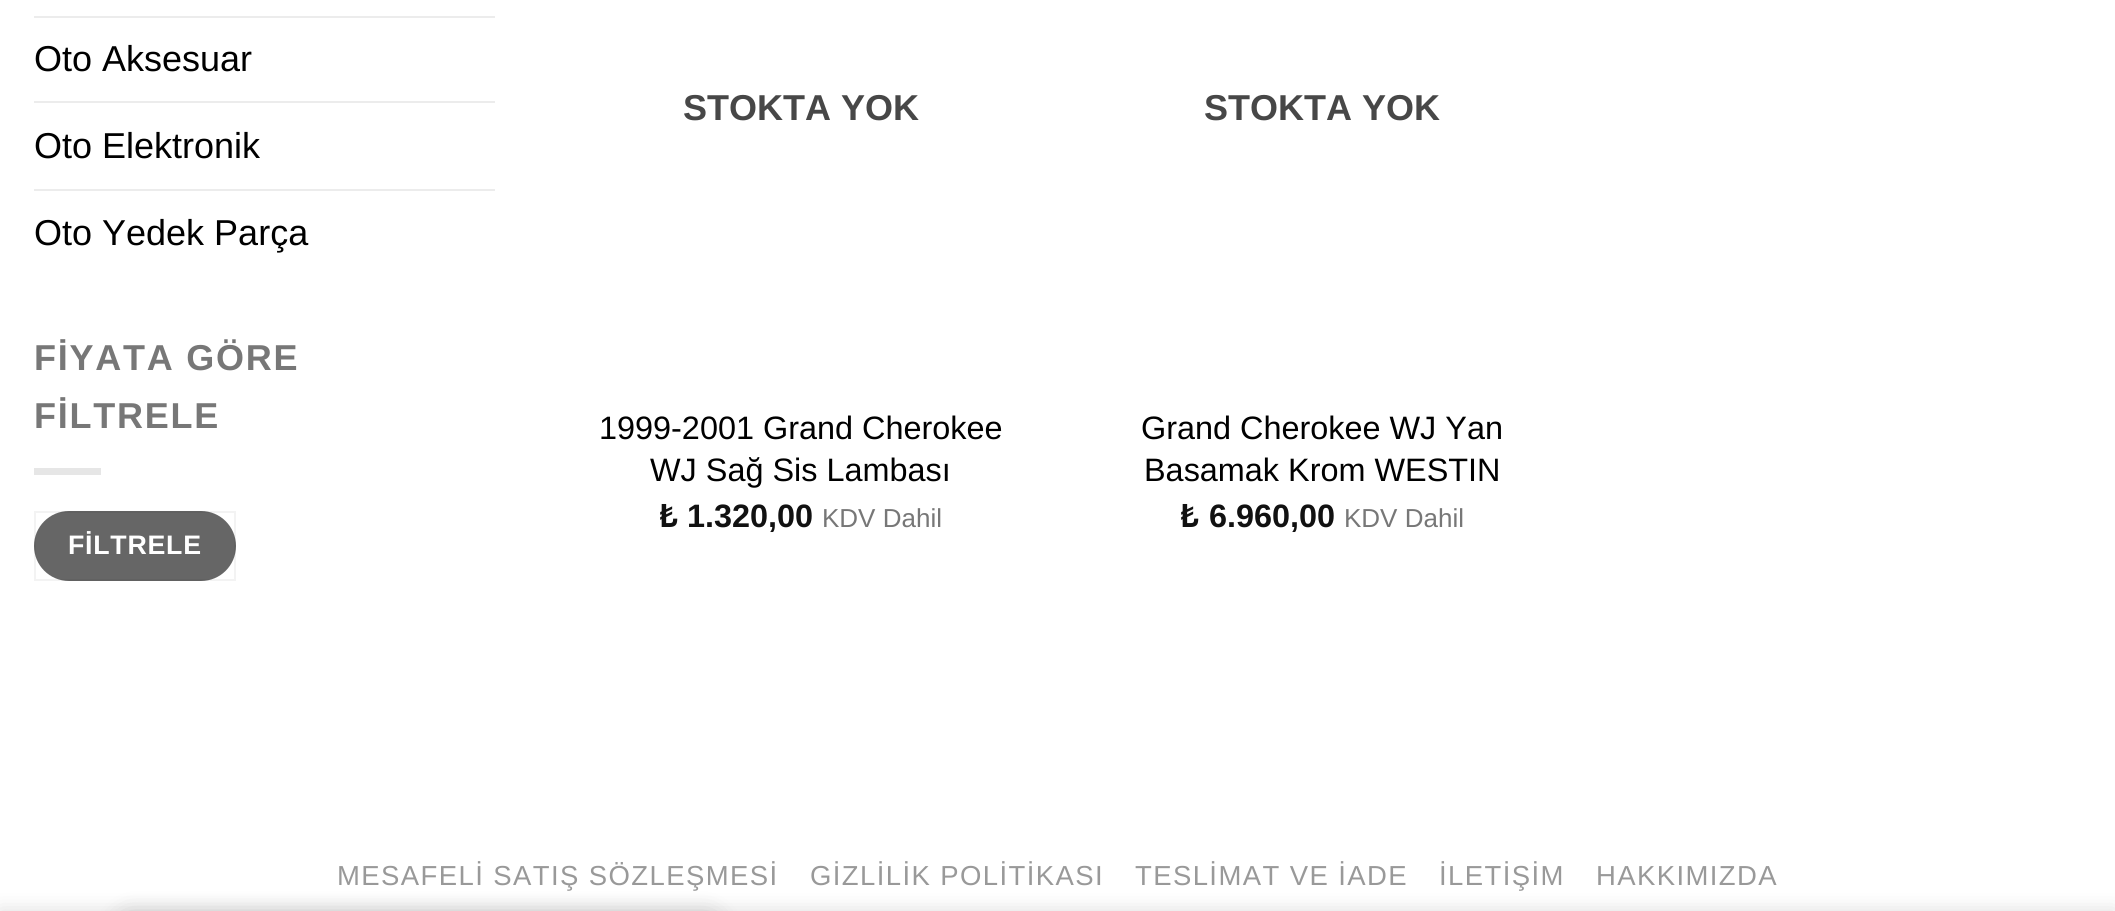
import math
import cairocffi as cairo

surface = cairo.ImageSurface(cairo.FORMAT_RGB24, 2115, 911)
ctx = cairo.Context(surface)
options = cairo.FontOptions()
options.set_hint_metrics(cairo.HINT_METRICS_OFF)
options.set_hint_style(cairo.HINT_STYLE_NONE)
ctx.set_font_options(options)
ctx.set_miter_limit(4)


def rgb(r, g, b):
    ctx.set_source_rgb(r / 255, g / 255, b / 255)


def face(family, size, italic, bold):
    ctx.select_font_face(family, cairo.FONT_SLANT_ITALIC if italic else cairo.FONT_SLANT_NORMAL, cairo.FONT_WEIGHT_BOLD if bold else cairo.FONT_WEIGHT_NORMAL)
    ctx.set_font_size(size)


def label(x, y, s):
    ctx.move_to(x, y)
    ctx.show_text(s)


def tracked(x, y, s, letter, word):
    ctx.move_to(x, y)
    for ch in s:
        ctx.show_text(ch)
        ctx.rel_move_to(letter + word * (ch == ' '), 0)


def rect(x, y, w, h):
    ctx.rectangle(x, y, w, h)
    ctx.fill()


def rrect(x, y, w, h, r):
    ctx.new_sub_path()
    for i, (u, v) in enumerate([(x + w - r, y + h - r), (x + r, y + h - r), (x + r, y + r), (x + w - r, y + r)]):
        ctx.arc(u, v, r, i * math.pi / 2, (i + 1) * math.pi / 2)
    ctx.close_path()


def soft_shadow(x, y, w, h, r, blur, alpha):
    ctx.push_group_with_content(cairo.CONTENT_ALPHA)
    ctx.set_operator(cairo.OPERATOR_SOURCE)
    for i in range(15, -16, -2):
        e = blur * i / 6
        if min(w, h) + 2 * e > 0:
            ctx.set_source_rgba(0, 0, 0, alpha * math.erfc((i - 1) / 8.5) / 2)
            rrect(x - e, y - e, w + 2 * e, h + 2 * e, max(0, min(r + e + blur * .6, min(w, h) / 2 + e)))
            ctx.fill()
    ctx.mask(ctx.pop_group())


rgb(255, 255, 255)
ctx.paint()
rgb(236, 236, 236)
rect(34, 16, 461, 2)
face('Liberation Sans', 36, 0, 0)
rgb(0, 0, 0)
label(34, 71, 'Oto Aksesuar')
rgb(236, 236, 236)
rect(34, 101, 461, 2)
rgb(0, 0, 0)
label(34, 158, 'Oto Elektronik')
rgb(236, 236, 236)
rect(34, 189, 461, 2)
rgb(0, 0, 0)
label(34, 245, 'Oto Yedek Parça')
face('Liberation Sans', 36, 0, 1)
rgb(119, 119, 119)
tracked(34, 370, 'FİYATA GÖRE', 1.75, 0)
tracked(34, 428, 'FİLTRELE', 1.75, 0)
rgb(230, 230, 230)
rect(34, 468, 67, 7)
rgb(102, 102, 102)
rrect(34, 511, 202, 70, 35)
ctx.fill()
ctx.rectangle(35, 512, 200, 68)
ctx.set_source_rgba(0, 0, 0, 0.05)
ctx.stroke()
face('Liberation Sans', 26.75, 0, 1)
rgb(255, 255, 255)
tracked(68, 554, 'FİLTRELE', 0.75, 0)
face('Liberation Sans', 36, 0, 1)
rgb(71, 71, 71)
label(683, 120, 'STOKTA YOK')
face('Liberation Sans', 32.4, 0, 0)
rgb(0, 0, 0)
label(599, 439, '1999-2001 Grand Cherokee')
label(650, 481, 'WJ Sağ Sis Lambası')
face('Raleway', 32.4, 0, 1)
rgb(17, 17, 17)
label(659, 527, '₺')
face('Liberation Sans', 32.4, 0, 1)
label(687, 527, '1.320,00')
face('Liberation Sans', 26, 0, 0)
rgb(119, 119, 119)
label(822, 527, 'KDV Dahil')
face('Liberation Sans', 36, 0, 1)
rgb(71, 71, 71)
label(1204, 120, 'STOKTA YOK')
face('Liberation Sans', 32.4, 0, 0)
rgb(0, 0, 0)
label(1141, 439, 'Grand Cherokee WJ Yan')
label(1144, 481, 'Basamak Krom WESTIN')
face('Raleway', 32.4, 0, 1)
rgb(17, 17, 17)
label(1180, 527, '₺')
face('Liberation Sans', 32.4, 0, 1)
label(1209, 527, '6.960,00')
face('Liberation Sans', 26, 0, 0)
rgb(119, 119, 119)
label(1344, 527, 'KDV Dahil')
face('Liberation Sans', 27.5, 0, 0)
rgb(153, 153, 153)
tracked(337, 885, 'MESAFELİ SATIŞ SÖZLEŞMESİ', 1.4, 0)
tracked(810, 885, 'GİZLİLİK POLİTİKASI', 1.4, 0)
tracked(1135, 885, 'TESLİMAT VE İADE', 1.4, 0)
tracked(1439, 885, 'İLETİŞİM', 1.4, 0)
tracked(1596, 885, 'HAKKIMIZDA', 1.4, 0)
rgb(0, 0, 0)
soft_shadow(113, 911, 612, 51, 18, 11, 0.15)
soft_shadow(0, 911, 2115, 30, 0, 10, 0.14)
surface.write_to_png('render.png')
